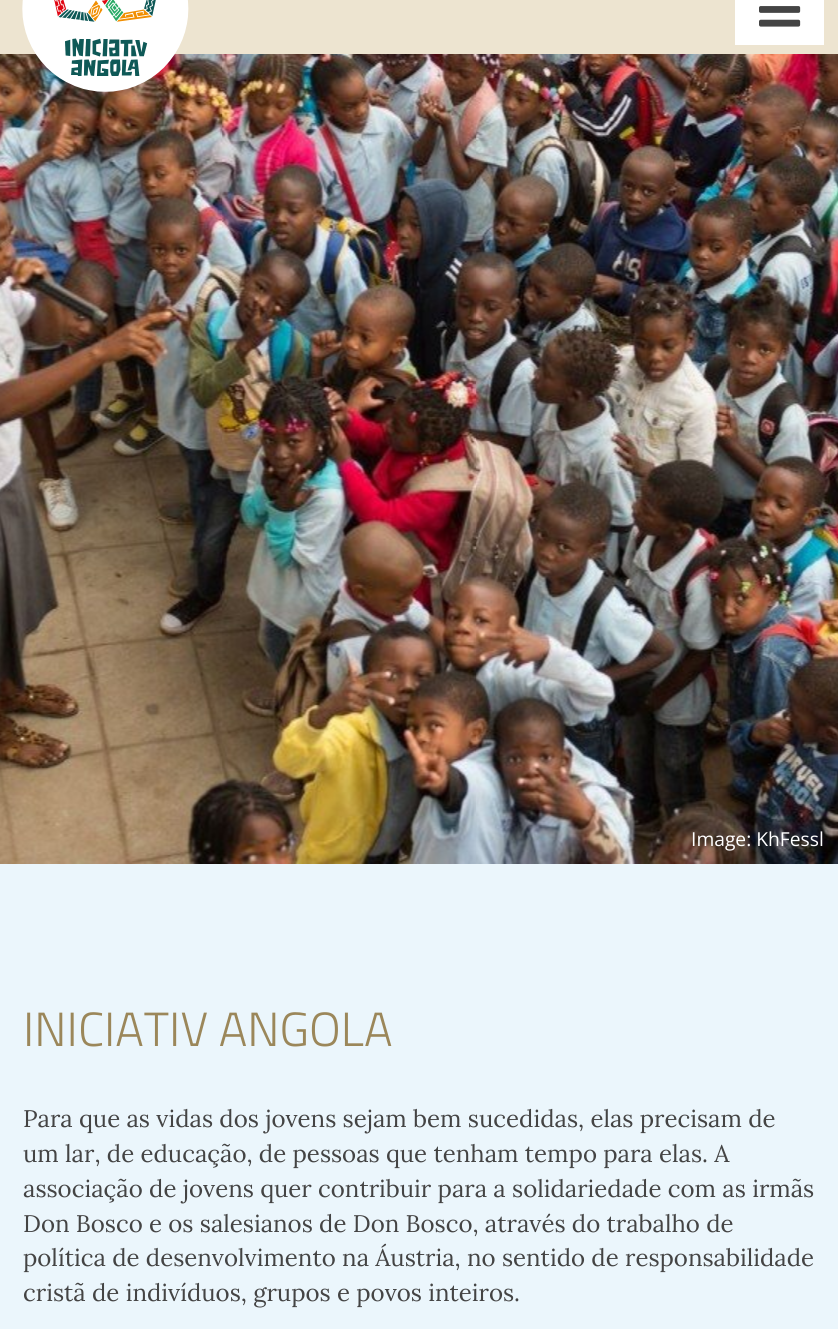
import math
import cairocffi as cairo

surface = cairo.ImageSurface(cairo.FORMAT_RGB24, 838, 1329)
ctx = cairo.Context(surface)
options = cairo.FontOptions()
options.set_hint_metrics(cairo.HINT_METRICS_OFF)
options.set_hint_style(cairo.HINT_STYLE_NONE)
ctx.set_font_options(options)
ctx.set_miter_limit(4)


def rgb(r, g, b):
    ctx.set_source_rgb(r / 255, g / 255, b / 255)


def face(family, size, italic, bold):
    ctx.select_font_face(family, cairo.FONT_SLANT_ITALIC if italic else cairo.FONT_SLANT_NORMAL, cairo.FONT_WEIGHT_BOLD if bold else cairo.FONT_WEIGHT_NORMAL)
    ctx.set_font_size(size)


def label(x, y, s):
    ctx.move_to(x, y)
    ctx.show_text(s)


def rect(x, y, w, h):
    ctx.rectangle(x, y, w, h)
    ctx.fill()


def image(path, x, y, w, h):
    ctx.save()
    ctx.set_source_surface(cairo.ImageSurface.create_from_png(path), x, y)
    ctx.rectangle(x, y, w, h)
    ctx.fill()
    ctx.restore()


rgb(235, 246, 252)
ctx.paint()
rgb(237, 228, 208)
rect(0, 0, 838, 54)
image('image2.png', 0, 54, 838, 810)
image('image0.png', 22, 0, 167, 92)
rgb(255, 255, 255)
rect(735, 0, 89, 45)
image('image1.png', 759, 6, 42, 21)
face('Open Sans', 19.25, 0, 0)
label(691, 846, 'Image: KhFessl')
face('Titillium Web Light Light', 48, 0, 0)
rgb(155, 135, 90)
label(23, 1046, 'INICIATIV ANGOLA')
face('Lora', 24, 0, 0)
rgb(68, 68, 68)
label(23, 1127, 'Para que as vidas dos jovens sejam bem sucedidas, elas precisam de')
label(23, 1162, 'um lar, de educação, de pessoas que tenham tempo para elas. A')
label(23, 1197, 'associação de jovens quer contribuir para a solidariedade com as irmãs')
label(23, 1232, 'Don Bosco e os salesianos de Don Bosco, através do trabalho de')
label(23, 1266, 'política de desenvolvimento na Áustria, no sentido de responsabilidade')
label(23, 1301, 'cristã de indivíduos, grupos e povos inteiros.')
surface.write_to_png('render.png')
